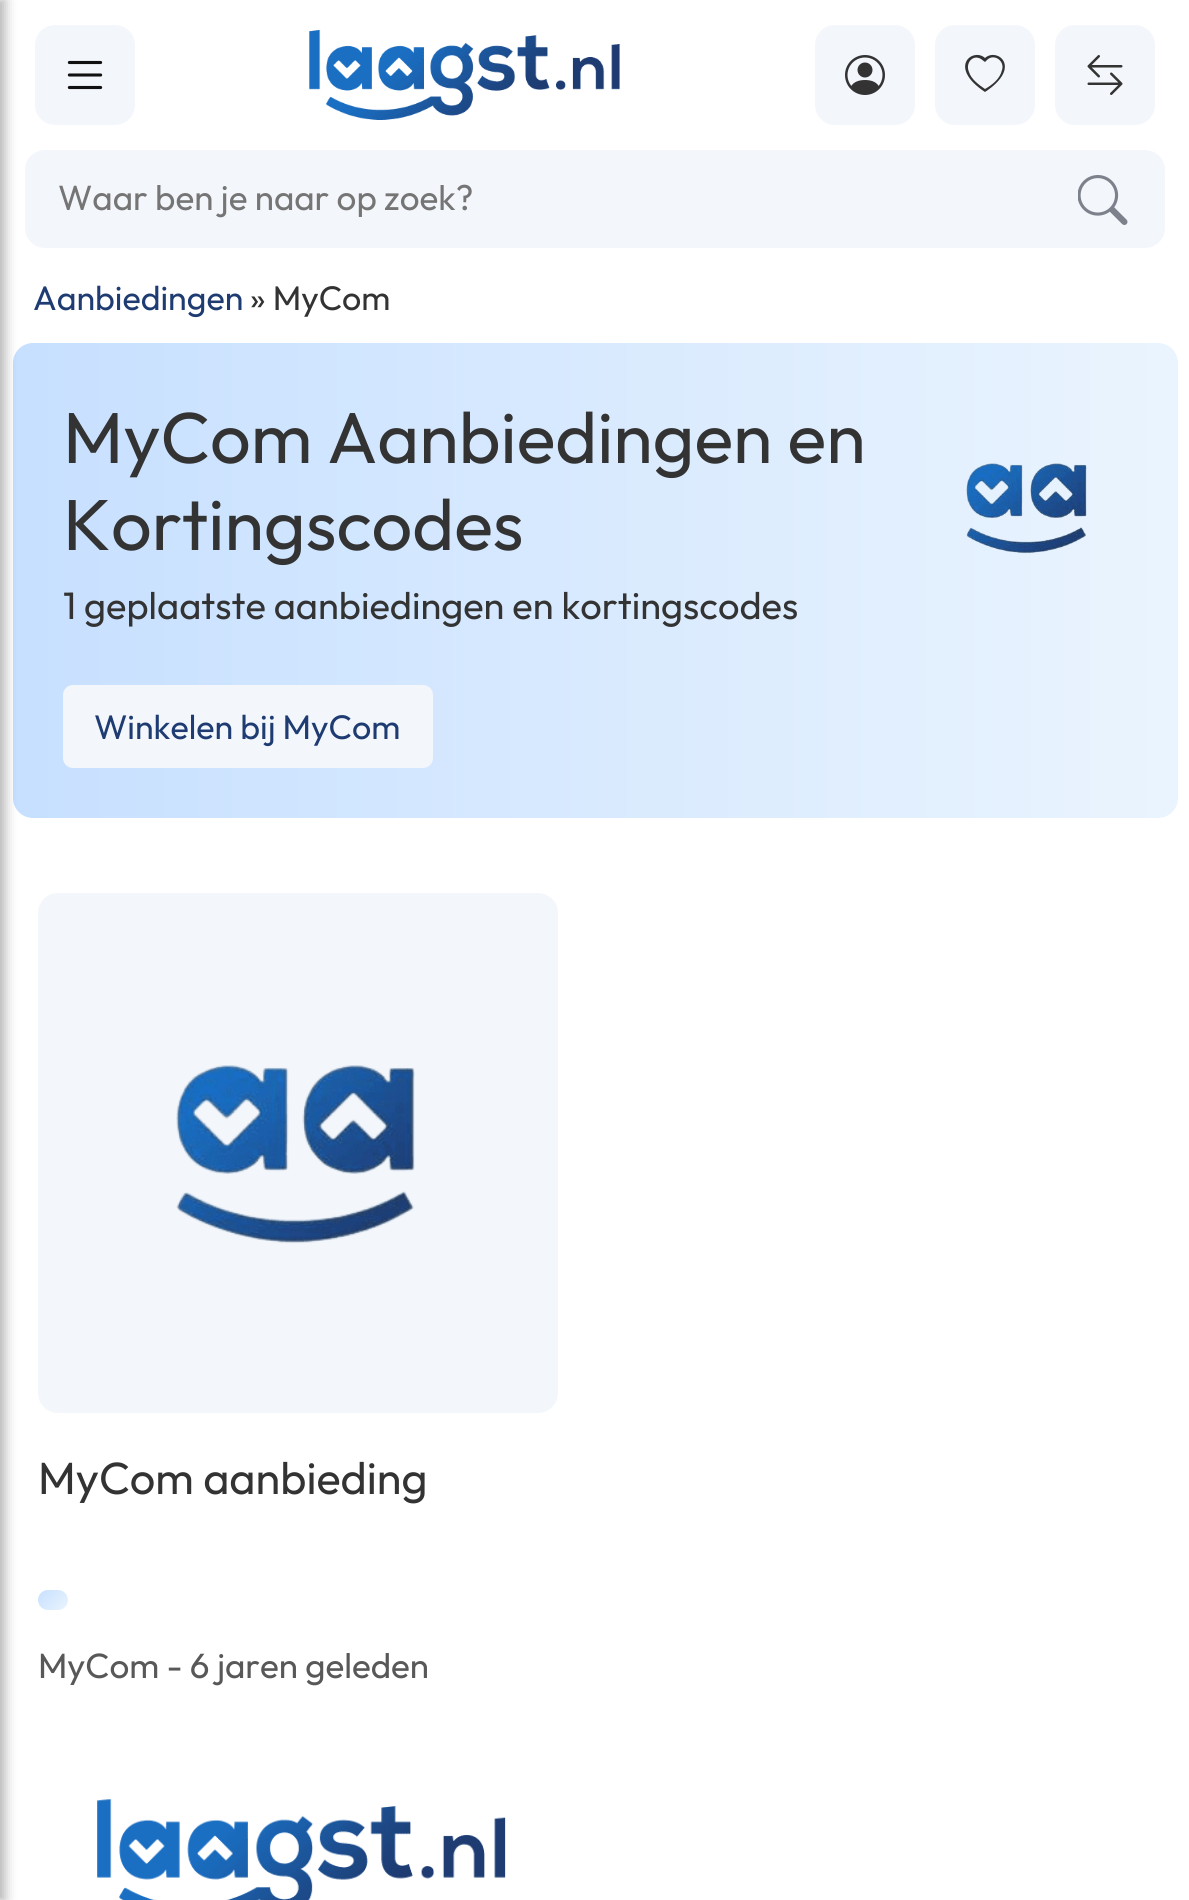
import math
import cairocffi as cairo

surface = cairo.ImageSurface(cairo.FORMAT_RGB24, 1189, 1900)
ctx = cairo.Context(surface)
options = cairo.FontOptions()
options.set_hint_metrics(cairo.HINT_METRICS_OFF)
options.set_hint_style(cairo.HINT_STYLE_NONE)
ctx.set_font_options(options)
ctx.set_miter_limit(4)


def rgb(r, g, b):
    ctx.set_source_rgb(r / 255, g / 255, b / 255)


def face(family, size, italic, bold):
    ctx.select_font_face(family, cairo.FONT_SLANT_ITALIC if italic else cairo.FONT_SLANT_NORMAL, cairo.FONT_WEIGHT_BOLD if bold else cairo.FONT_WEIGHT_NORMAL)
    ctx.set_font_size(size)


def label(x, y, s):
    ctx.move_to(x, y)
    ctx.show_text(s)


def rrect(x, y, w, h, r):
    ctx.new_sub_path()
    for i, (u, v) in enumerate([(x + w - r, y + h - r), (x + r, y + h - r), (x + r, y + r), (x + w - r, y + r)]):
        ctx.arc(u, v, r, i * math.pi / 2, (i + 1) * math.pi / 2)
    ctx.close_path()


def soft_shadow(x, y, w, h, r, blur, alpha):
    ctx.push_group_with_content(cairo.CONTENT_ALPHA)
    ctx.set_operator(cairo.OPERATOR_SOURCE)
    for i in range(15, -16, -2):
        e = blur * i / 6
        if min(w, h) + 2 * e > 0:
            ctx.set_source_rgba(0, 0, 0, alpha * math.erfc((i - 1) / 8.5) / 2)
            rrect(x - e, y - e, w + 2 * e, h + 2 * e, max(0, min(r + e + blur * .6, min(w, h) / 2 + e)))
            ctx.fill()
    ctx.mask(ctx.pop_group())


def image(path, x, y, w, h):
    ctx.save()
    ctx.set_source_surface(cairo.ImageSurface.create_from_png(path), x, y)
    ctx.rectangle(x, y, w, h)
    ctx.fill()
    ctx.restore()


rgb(255, 255, 255)
ctx.paint()
gradient = cairo.LinearGradient(13, 580, 1178, 580)
gradient.add_color_stop_rgba(0, 0.78, 0.878, 1, 1)
gradient.add_color_stop_rgba(1, 0.918, 0.957, 0.996, 1)
ctx.set_source(gradient)
rrect(13, 343, 1165, 475, 20)
ctx.fill()
rgb(0, 0, 0)
soft_shadow(-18, 0, 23, 1900, 0, 6, 0.3)
rgb(243, 246, 251)
rrect(36.5, 26.5, 97, 97, 18.5)
ctx.fill_preserve()
ctx.set_line_width(3)
ctx.stroke()
image('image0.png', 67, 60, 36, 30)
image('image1.png', 309, 30, 311, 90)
rrect(816.5, 26.5, 97, 97, 18.5)
ctx.fill_preserve()
ctx.stroke()
image('image2.png', 845, 55, 40, 40)
rrect(936.5, 26.5, 97, 97, 18.5)
ctx.fill_preserve()
ctx.stroke()
rgb(51, 51, 51)
ctx.new_path()
ctx.move_to(985, 62)
ctx.line_to(981, 59)
ctx.curve_to(973, 54, 965, 63, 969, 72)
ctx.curve_to(971, 79, 979, 85, 985, 89)
ctx.curve_to(992, 85, 1000, 79, 1002, 70)
ctx.curve_to(1005, 61, 994, 53, 987, 60)
ctx.close_path()
ctx.move_to(985, 92)
ctx.curve_to(947, 67, 973, 47, 985, 58)
ctx.curve_to(997, 47, 1023, 67, 985, 92)
ctx.fill()
rgb(243, 246, 251)
rrect(1056.5, 26.5, 97, 97, 18.5)
ctx.fill_preserve()
ctx.stroke()
image('image3.png', 1087, 55, 36, 40)
rrect(26.5, 151.5, 1137, 95, 18.5)
ctx.fill_preserve()
ctx.stroke()
face('Outfit', 35, 0, 0)
rgb(117, 117, 117)
label(58, 210, 'Waar ben je naar op zoek?')
image('image4.png', 1078, 175, 50, 50)
face('Outfit', 34, 0, 0)
rgb(30, 60, 114)
label(33, 310, 'Aanbiedingen')
rgb(51, 51, 51)
label(250, 310, '» MyCom')
face('Outfit', 72, 0, 0)
label(63, 463, 'MyCom Aanbiedingen en')
label(63, 550, 'Kortingscodes')
face('Outfit', 38, 0, 0)
label(63, 619, '1 geplaatste aanbiedingen en kortingscodes')
image('image5.png', 966, 463, 121, 91)
rgb(243, 246, 251)
rrect(63, 685, 370, 83, 10)
ctx.fill()
face('Outfit', 34, 0, 0)
rgb(30, 60, 114)
label(94, 739, 'Winkelen bij MyCom')
rgb(243, 246, 251)
rrect(38, 893, 520, 520, 20)
ctx.fill()
image('image6.png', 176, 1065, 239, 179)
face('Outfit', 45, 0, 0)
rgb(51, 51, 51)
label(38, 1494, 'MyCom aanbieding')
gradient = cairo.LinearGradient(40, 1588, 65, 1613)
gradient.add_color_stop_rgba(0, 0.78, 0.878, 1, 1)
gradient.add_color_stop_rgba(1, 0.918, 0.957, 0.996, 1)
ctx.set_source(gradient)
rrect(38, 1590, 30, 20, 10)
ctx.fill()
face('Outfit', 35, 0, 0)
rgb(88, 88, 88)
label(38, 1678, 'MyCom - 6 jaren geleden')
image('image7.png', 97, 1799, 409, 101)
surface.write_to_png('render.png')
